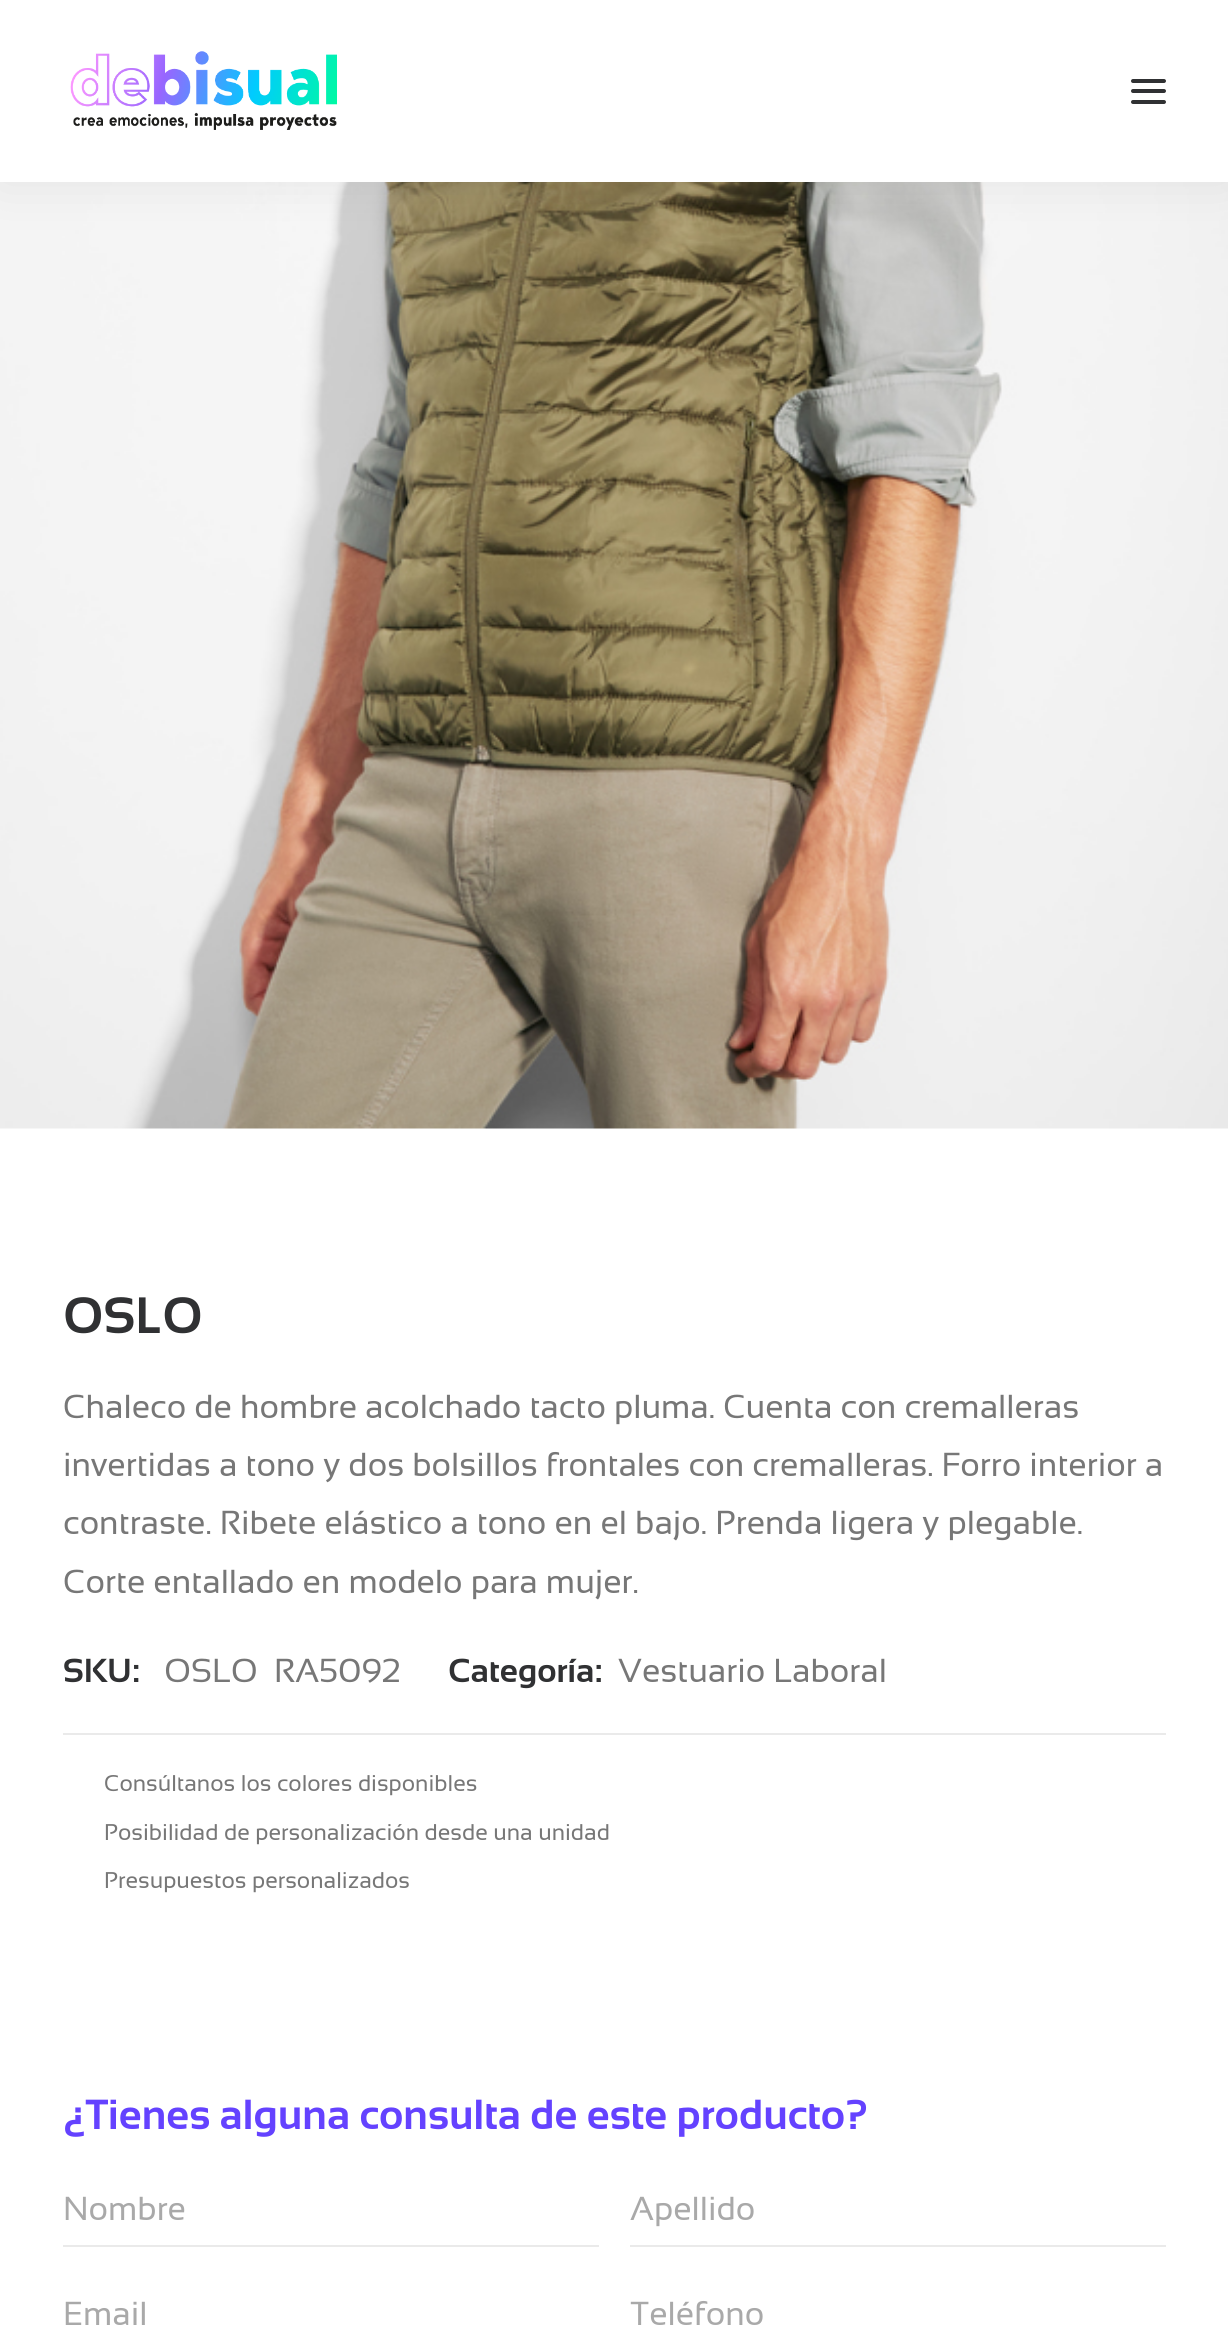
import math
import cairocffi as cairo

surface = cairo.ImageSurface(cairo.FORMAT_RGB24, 1228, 2335)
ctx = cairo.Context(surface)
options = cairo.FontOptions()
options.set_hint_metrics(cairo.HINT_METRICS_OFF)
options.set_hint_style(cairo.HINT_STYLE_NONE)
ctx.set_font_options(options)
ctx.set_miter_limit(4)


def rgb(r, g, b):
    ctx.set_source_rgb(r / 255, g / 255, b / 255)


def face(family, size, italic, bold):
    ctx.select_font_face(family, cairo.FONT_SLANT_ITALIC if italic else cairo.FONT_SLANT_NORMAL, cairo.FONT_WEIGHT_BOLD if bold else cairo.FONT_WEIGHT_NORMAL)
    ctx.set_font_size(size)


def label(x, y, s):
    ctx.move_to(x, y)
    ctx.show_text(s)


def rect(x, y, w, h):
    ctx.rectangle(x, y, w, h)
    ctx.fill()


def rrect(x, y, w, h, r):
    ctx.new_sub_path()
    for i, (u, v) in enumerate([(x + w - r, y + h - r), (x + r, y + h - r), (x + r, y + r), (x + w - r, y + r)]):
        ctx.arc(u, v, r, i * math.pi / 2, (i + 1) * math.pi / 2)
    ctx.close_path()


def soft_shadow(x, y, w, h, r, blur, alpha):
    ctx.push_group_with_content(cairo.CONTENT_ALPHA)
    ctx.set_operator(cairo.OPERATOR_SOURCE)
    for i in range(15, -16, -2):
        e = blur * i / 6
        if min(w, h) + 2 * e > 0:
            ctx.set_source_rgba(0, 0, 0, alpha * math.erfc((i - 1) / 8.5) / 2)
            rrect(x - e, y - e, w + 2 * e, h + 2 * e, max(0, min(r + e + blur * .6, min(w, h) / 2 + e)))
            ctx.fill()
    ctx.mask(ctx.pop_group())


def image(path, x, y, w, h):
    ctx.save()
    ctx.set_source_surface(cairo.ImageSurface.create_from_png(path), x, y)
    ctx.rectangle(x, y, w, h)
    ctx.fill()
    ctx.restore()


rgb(255, 255, 255)
ctx.paint()
image('image1.png', 0, 182, 1228, 947)
rgb(0, 0, 0)
soft_shadow(0, 0, 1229, 182, 0, 26, 0.07)
rgb(255, 255, 255)
rect(0, 0, 1228, 182)
image('image0.png', 70, 51, 267, 79)
rgb(48, 49, 51)
rrect(1131, 89, 35, 4, 2)
ctx.fill()
rrect(1131, 79, 35, 4, 2)
ctx.fill()
rrect(1131, 100, 35, 4, 2)
ctx.fill()
face('Sansation', 51, 0, 1)
label(63, 1333, 'OSLO')
face('Sansation', 33.25, 0, 0)
rgb(119, 119, 119)
label(63, 1418, 'Chaleco de hombre acolchado tacto pluma. Cuenta con cremalleras')
label(63, 1476, 'invertidas a tono y dos bolsillos frontales con cremalleras. Forro interior a')
label(63, 1534, 'contraste. Ribete elástico a tono en el bajo. Prenda ligera y plegable.')
label(63, 1593, 'Corte entallado en modelo para mujer.')
face('Sansation', 33.25, 0, 1)
rgb(48, 49, 51)
label(63, 1682, 'SKU:')
face('Sansation', 33.25, 0, 0)
rgb(119, 119, 119)
label(164, 1682, 'OSLO  RA5092')
face('Sansation', 33.25, 0, 1)
rgb(48, 49, 51)
label(448, 1682, 'Categoría:')
face('Sansation', 33.25, 0, 0)
rgb(119, 119, 119)
label(618, 1682, 'Vestuario Laboral')
rgb(234, 234, 234)
rect(63, 1733, 1103, 2)
face('Sansation', 22.75, 0, 0)
rgb(119, 119, 119)
label(104, 1791, 'Consúltanos los colores disponibles')
label(104, 1840, 'Posibilidad de personalización desde una unidad')
label(104, 1888, 'Presupuestos personalizados')
face('Sansation', 42, 0, 1)
rgb(100, 66, 255)
label(63, 2129, '¿Tienes alguna consulta de este producto?')
rgb(234, 234, 234)
rect(63, 2245, 536, 2)
face('Sansation', 33.25, 0, 0)
rgb(169, 169, 169)
label(63, 2220, 'Nombre')
rgb(234, 234, 234)
rect(630, 2245, 536, 2)
rgb(169, 169, 169)
label(630, 2220, 'Apellido')
label(63, 2325, 'Email')
label(630, 2325, 'Teléfono')
surface.write_to_png('render.png')
